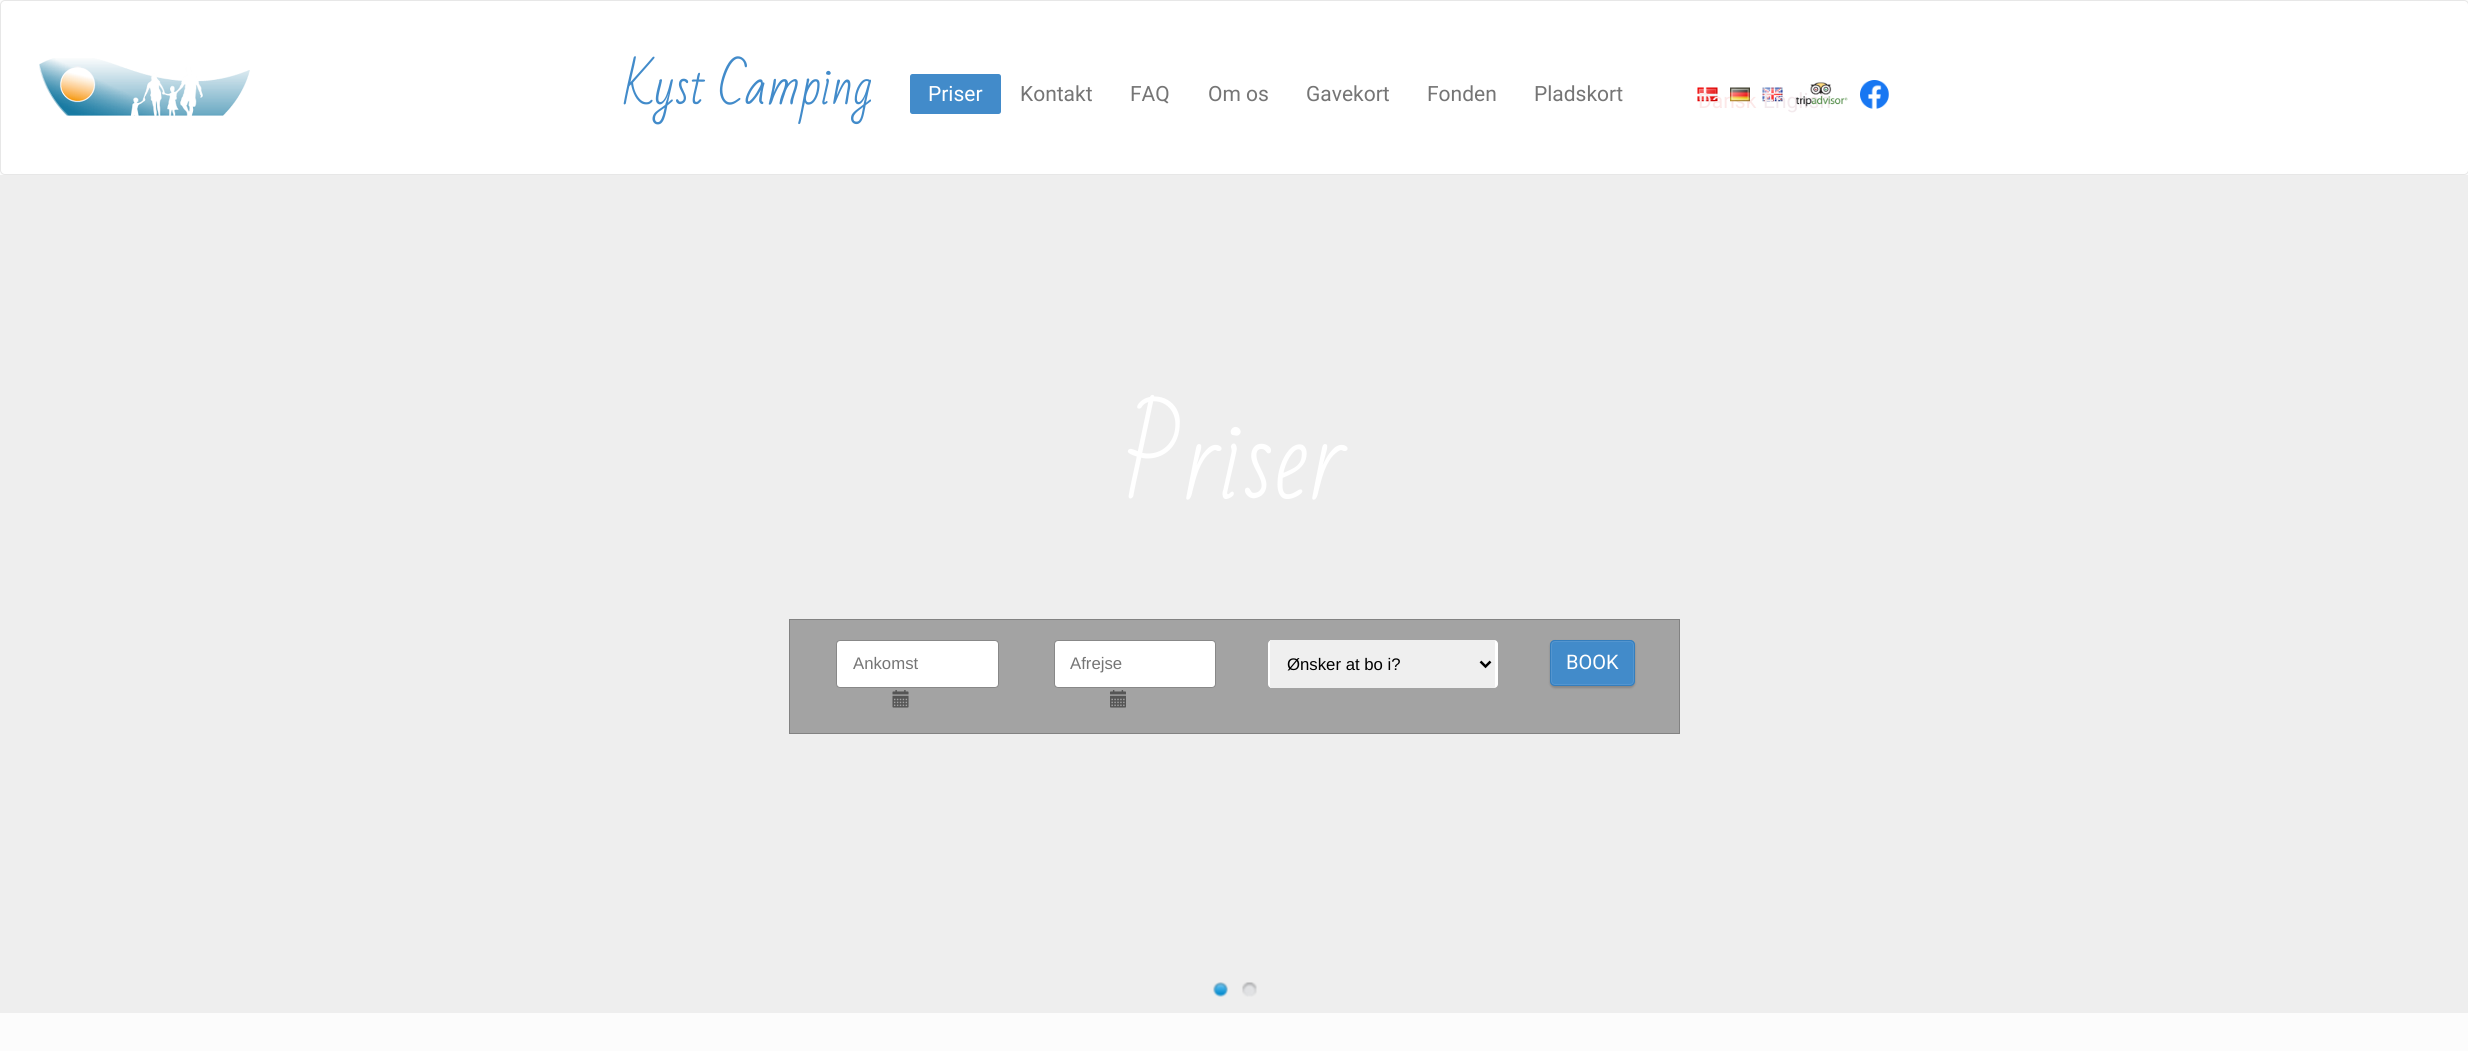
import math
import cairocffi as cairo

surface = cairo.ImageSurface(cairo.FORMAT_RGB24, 2468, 1051)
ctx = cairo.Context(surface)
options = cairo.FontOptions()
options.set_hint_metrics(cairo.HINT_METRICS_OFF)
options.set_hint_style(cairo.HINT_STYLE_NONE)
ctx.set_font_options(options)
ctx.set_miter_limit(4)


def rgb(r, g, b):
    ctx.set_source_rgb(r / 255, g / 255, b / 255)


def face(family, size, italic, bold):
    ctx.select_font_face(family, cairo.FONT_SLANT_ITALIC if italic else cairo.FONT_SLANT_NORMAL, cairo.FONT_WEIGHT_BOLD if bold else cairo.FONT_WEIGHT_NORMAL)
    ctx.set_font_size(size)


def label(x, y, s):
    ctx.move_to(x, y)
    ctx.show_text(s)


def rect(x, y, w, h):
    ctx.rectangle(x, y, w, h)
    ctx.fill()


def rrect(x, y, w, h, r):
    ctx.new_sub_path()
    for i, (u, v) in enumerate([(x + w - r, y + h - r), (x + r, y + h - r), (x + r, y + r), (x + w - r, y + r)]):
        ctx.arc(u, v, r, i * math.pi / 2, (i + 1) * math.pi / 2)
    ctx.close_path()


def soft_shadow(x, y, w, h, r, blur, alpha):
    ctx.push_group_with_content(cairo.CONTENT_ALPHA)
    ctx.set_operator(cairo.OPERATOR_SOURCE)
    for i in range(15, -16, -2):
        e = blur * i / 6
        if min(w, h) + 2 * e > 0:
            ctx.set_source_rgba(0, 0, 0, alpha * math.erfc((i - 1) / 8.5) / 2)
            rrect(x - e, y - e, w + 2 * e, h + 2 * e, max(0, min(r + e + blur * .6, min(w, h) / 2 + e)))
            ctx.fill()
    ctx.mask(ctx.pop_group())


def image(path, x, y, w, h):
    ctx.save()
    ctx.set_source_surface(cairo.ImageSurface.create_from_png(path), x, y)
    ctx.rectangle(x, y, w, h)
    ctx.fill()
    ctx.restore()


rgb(252, 252, 252)
ctx.paint()
rgb(255, 255, 255)
rrect(0.5, 0.5, 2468, 174, 4.5)
ctx.fill_preserve()
rgb(231, 231, 231)
ctx.set_line_width(1)
ctx.stroke()
image('image0.png', 39, 58, 211, 58)
face('Bad Script', 49, 0, 0)
rgb(66, 139, 202)
label(624, 104, 'Kyst Camping')
rrect(910, 74, 91, 40, 2.5)
ctx.fill()
face('Roboto', 21, 0, 0)
rgb(255, 255, 255)
label(928, 101, 'Priser')
rgb(117, 117, 117)
label(1020, 101, 'Kontakt')
label(1130, 101, 'FAQ')
label(1208, 101, 'Om os')
label(1306, 101, 'Gavekort')
label(1427, 101, 'Fonden')
label(1534, 101, 'Pladskort')
image('image4.png', 1697, 87, 21, 15)
rgb(252, 232, 232)
label(1698, 108, 'Dansk')
image('image1.png', 1730, 87, 20, 15)
image('image5.png', 1762, 87, 21, 15)
rgb(243, 234, 237)
label(1763, 108, 'English')
image('image2.png', 1795, 82, 53, 25)
image('image3.png', 1860, 80, 29, 29)
rgb(238, 238, 238)
rect(0, 175, 2468, 838)
image('image6.png', 1213, 982, 15, 15)
image('image7.png', 1242, 982, 15, 15)
face('Bad Script', 105, 0, 0)
rgb(255, 255, 255)
label(1123, 498, 'Priser')
rgb(163, 163, 163)
ctx.rectangle(789.5, 619.5, 890, 114)
ctx.fill_preserve()
rgb(130, 130, 130)
ctx.stroke()
rgb(255, 255, 255)
rrect(836.5, 640.5, 162, 47, 3.5)
ctx.fill_preserve()
rgb(136, 136, 136)
ctx.stroke()
face('Liberation Sans', 16.75, 0, 0)
rgb(117, 117, 117)
label(853, 669, 'Ankomst')
image('image8.png', 892, 690, 17, 18)
rgb(255, 255, 255)
rrect(1054.5, 640.5, 161, 47, 3.5)
ctx.fill_preserve()
rgb(136, 136, 136)
ctx.stroke()
rgb(117, 117, 117)
label(1070, 669, 'Afrejse')
image('image9.png', 1110, 690, 16, 18)
rgb(255, 255, 255)
rrect(1268, 640, 230, 48, 4)
ctx.fill()
rgb(239, 239, 239)
rect(1270, 640, 225, 48)
ctx.new_path()
ctx.move_to(1480.5, 661.5)
ctx.line_to(1485.5, 666.5)
ctx.line_to(1490.5, 661.5)
rgb(0, 0, 0)
ctx.set_line_width(2.5)
ctx.stroke()
label(1287, 670, 'Ønsker at bo i?')
rgb(0, 0, 0)
soft_shadow(1550, 641, 85, 47, 5, 1, 0.18)
rgb(66, 139, 202)
rrect(1550, 640, 85, 46, 5)
ctx.fill()
rrect(1551.5, 641.5, 82, 43, 3.5)
rgb(83, 149, 207)
ctx.set_line_width(1)
ctx.stroke()
rrect(1550.5, 640.5, 84, 45, 4.5)
rgb(53, 126, 189)
ctx.stroke()
face('Roboto', 20, 0, 0)
rgb(255, 255, 255)
label(1566, 669, 'BOOK')
surface.write_to_png('render.png')
